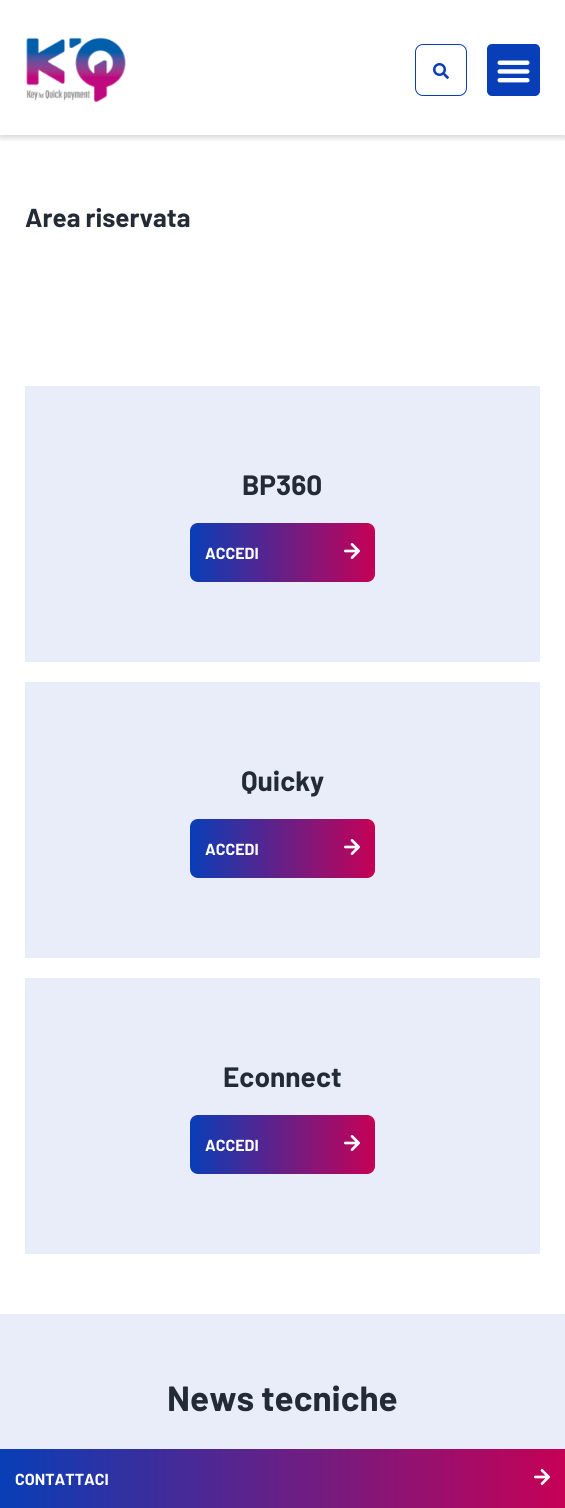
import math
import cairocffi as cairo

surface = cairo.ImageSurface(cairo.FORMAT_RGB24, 565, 1508)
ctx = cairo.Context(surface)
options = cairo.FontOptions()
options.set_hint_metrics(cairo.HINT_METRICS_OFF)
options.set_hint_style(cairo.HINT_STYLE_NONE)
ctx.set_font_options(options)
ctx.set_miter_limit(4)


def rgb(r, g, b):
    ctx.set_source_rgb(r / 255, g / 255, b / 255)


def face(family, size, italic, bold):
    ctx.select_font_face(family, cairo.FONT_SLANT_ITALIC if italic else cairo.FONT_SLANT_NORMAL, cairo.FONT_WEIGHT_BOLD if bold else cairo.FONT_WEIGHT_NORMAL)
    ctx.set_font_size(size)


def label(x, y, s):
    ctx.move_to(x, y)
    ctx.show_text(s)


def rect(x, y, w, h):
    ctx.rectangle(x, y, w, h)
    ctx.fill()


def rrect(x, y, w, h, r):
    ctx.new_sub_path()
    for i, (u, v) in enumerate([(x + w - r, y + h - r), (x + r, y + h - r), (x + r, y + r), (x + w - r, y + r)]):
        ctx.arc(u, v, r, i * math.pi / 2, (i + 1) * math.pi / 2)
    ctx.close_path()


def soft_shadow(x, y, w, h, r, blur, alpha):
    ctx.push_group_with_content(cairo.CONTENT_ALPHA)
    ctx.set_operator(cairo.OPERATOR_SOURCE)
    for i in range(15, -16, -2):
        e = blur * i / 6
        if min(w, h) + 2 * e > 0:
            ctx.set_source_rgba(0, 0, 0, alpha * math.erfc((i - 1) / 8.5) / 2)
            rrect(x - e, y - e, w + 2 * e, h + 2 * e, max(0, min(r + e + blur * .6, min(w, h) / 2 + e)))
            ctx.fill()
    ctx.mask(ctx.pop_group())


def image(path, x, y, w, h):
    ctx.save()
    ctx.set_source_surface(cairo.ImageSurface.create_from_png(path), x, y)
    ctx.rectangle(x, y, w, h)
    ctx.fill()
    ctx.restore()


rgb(255, 255, 255)
ctx.paint()
ctx.save()
ctx.rectangle(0, 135, 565, 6)
ctx.clip()
rgb(0, 0, 0)
soft_shadow(0, 3, 565, 135, 0, 3, 0.16)
ctx.restore()
image('image0.png', 26, 37, 100, 66)
rrect(415.5, 44.5, 51, 51, 7.5)
rgb(8, 62, 183)
ctx.set_line_width(1)
ctx.stroke()
image('image1.png', 433, 63, 16, 16)
rrect(487, 44, 53, 52, 5)
ctx.fill()
image('image2.png', 497, 60, 33, 23)
face('Barlow', 26, 0, 1)
rgb(36, 43, 53)
label(25, 227, 'Area riservata')
rgb(232, 237, 249)
rect(25, 386, 515, 276)
face('Barlow', 28, 0, 1)
rgb(36, 43, 53)
label(242, 495, 'BP360')
gradient = cairo.LinearGradient(190, 553, 375, 553)
gradient.add_color_stop_rgba(0, 0.031, 0.243, 0.718, 1)
gradient.add_color_stop_rgba(1, 0.776, 0.004, 0.337, 1)
ctx.set_source(gradient)
rrect(190, 523, 185, 59, 8)
ctx.fill()
face('Barlow', 16, 0, 1)
rgb(255, 255, 255)
label(205, 559, 'ACCEDI')
image('image3.png', 344, 543, 16, 16)
rgb(232, 237, 249)
rect(25, 682, 515, 276)
face('Barlow', 28, 0, 1)
rgb(36, 43, 53)
label(241, 791, 'Quicky')
gradient = cairo.LinearGradient(190, 849, 375, 849)
gradient.add_color_stop_rgba(0, 0.031, 0.243, 0.718, 1)
gradient.add_color_stop_rgba(1, 0.776, 0.004, 0.337, 1)
ctx.set_source(gradient)
rrect(190, 819, 185, 59, 8)
ctx.fill()
face('Barlow', 16, 0, 1)
rgb(255, 255, 255)
label(205, 855, 'ACCEDI')
image('image3.png', 344, 839, 16, 16)
rgb(232, 237, 249)
rect(25, 978, 515, 276)
face('Barlow', 28, 0, 1)
rgb(36, 43, 53)
label(223, 1087, 'Econnect')
gradient = cairo.LinearGradient(190, 1145, 375, 1145)
gradient.add_color_stop_rgba(0, 0.031, 0.243, 0.718, 1)
gradient.add_color_stop_rgba(1, 0.776, 0.004, 0.337, 1)
ctx.set_source(gradient)
rrect(190, 1115, 185, 59, 8)
ctx.fill()
face('Barlow', 16, 0, 1)
rgb(255, 255, 255)
label(205, 1151, 'ACCEDI')
image('image3.png', 344, 1135, 16, 16)
rgb(232, 237, 249)
rect(0, 1314, 565, 135)
face('Barlow', 35, 0, 1)
rgb(36, 43, 53)
label(167, 1411, 'News tecniche')
gradient = cairo.LinearGradient(0, 1479, 565, 1479)
gradient.add_color_stop_rgba(0, 0.031, 0.243, 0.718, 1)
gradient.add_color_stop_rgba(1, 0.776, 0.004, 0.337, 1)
ctx.set_source(gradient)
rect(0, 1449, 565, 59)
face('Barlow', 16, 0, 1)
rgb(255, 255, 255)
label(15, 1485, 'CONTATTACI')
image('image4.png', 534, 1469, 16, 16)
surface.write_to_png('render.png')
